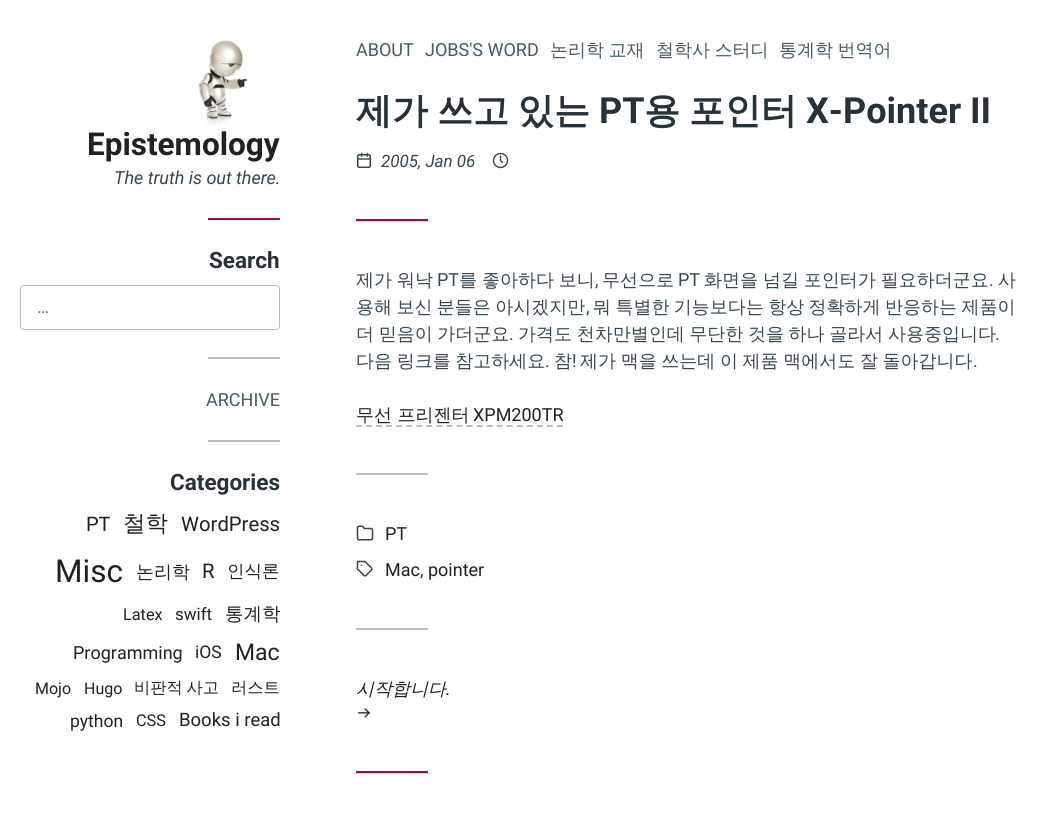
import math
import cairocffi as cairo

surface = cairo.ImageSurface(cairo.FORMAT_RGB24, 1040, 813)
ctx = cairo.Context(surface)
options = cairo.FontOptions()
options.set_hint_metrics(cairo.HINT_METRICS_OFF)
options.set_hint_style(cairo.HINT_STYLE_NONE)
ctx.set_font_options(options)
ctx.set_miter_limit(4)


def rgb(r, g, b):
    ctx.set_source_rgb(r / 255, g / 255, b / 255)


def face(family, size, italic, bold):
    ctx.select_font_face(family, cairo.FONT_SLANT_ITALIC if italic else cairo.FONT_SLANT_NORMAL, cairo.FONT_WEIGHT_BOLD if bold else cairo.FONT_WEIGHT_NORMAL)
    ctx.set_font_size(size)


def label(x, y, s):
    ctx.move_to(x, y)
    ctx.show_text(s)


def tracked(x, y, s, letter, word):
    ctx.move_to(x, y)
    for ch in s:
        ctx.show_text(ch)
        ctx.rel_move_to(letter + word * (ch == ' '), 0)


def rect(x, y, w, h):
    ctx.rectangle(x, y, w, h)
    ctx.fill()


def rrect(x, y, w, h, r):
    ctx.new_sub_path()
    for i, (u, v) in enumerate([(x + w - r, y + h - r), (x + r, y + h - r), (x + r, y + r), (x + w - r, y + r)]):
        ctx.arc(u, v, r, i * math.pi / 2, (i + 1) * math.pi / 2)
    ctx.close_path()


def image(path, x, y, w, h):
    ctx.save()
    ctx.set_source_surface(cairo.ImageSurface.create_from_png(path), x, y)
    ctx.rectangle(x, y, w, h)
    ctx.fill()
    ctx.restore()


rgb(255, 255, 255)
ctx.paint()
image('image0.png', 198, 40, 50, 86)
face('Roboto', 31.5, 0, 1)
rgb(33, 33, 33)
label(87, 155, 'Epistemology')
face('Roboto', 18, 1, 0)
rgb(55, 71, 79)
label(114, 184, 'The truth is out there.')
rgb(166, 3, 79)
rect(208, 218, 72, 2)
face('Roboto', 22.5, 0, 1)
rgb(38, 50, 56)
label(209, 268, 'Search')
rrect(20.5, 285.5, 259, 44, 3.5)
rgb(189, 189, 189)
ctx.set_line_width(1)
ctx.stroke()
face('Roboto', 18, 0, 0)
rgb(117, 117, 117)
label(37, 313, '…')
rgb(189, 189, 189)
rect(208, 357, 72, 2)
rgb(69, 90, 100)
label(206, 406, 'ARCHIVE')
rgb(189, 189, 189)
rect(208, 440, 72, 2)
face('Roboto', 22.5, 0, 1)
rgb(38, 50, 56)
label(170, 490, 'Categories')
face('Roboto', 20, 0, 0)
rgb(33, 33, 33)
label(86, 531, 'PT')
face('WenQuanYi Zen Hei Medium', 22.5, 0, 0)
label(123, 531, '철학')
face('Roboto', 20.25, 0, 0)
label(181, 531, 'WordPress')
face('Roboto', 31.5, 0, 0)
label(55, 582, 'Misc')
face('WenQuanYi Zen Hei Medium', 18, 0, 0)
label(136, 578, '논리학')
face('Roboto', 20.25, 0, 0)
label(202, 578, 'R')
face('WenQuanYi Zen Hei Medium', 17.5, 0, 0)
label(227, 577, '인식론')
face('Roboto', 16.25, 0, 0)
label(123, 620, 'Latex')
face('Roboto', 17, 0, 0)
label(175, 620, 'swift')
face('WenQuanYi Zen Hei Medium', 18.5, 0, 0)
label(225, 620, '통계학')
face('Roboto', 18, 0, 0)
label(73, 659, 'Programming')
face('Roboto', 17.5, 0, 0)
label(195, 658, 'iOS')
face('Roboto', 23, 0, 0)
label(235, 660, 'Mac')
face('Roboto', 16, 0, 0)
label(35, 694, 'Mojo')
label(84, 694, 'Hugo')
face('WenQuanYi Zen Hei Medium', 16.25, 0, 0)
tracked(134, 693, '비판적 사고', 0, -1)
label(231, 693, '러스트')
face('Roboto', 17.5, 0, 0)
label(70, 727, 'python')
face('Roboto', 16.25, 0, 0)
label(136, 726, 'CSS')
face('Roboto', 18.5, 0, 0)
label(179, 726, 'Books i read')
face('Roboto', 18, 0, 0)
rgb(69, 90, 100)
label(356, 56, 'ABOUT')
label(425, 56, 'JOBS\'S WORD')
face('WenQuanYi Zen Hei Medium', 18, 0, 0)
tracked(550, 56, '논리학 교재', 0, -1)
tracked(656, 56, '철학사 스터디', 0, -1)
tracked(779, 56, '통계학 번역어', 0, -1)
face('WenQuanYi Zen Hei', 36, 0, 1)
rgb(38, 50, 56)
label(356, 123, '제가')
label(437, 123, '쓰고')
label(518, 123, '있는')
face('Roboto', 36, 0, 1)
label(599, 123, 'PT')
face('WenQuanYi Zen Hei', 36, 0, 1)
label(644, 123, '용')
label(689, 123, '포인터')
face('Roboto', 36, 0, 1)
label(806, 123, 'X-Pointer II')
image('image1.png', 357, 152, 15, 16)
face('Roboto', 17, 1, 0)
rgb(55, 71, 79)
label(381, 167, '2005, Jan 06')
ctx.new_path()
ctx.arc(500.5, 160.5, 7, 0, 2 * math.pi)
ctx.set_line_width(1.4)
ctx.stroke()
ctx.new_path()
ctx.move_to(500.5, 156)
ctx.line_to(500.5, 160.5)
ctx.line_to(502.5, 162.5)
ctx.set_line_cap(cairo.LINE_CAP_ROUND)
ctx.set_line_join(cairo.LINE_JOIN_ROUND)
ctx.stroke()
rgb(166, 3, 79)
rect(356, 219, 72, 2)
face('WenQuanYi Zen Hei Medium', 18, 0, 0)
rgb(55, 71, 79)
tracked(356, 286, '제가 워낙', 0, -0.5)
face('Roboto', 18, 0, 0)
label(437, 286, 'PT')
face('WenQuanYi Zen Hei Medium', 18, 0, 0)
tracked(459, 286, '를 좋아하다 보니', 0, -0.5)
label(602, 286, '무선으로')
face('Roboto', 18, 0, 0)
label(678, 286, 'PT')
face('WenQuanYi Zen Hei Medium', 18, 0, 0)
tracked(704, 286, '화면을 넘길 포인터가 필요하더군요', 0, -0.5)
label(998, 286, '사')
face('Roboto', 18, 0, 0)
label(595, 286, ',')
label(989, 286, '.')
face('WenQuanYi Zen Hei Medium', 18, 0, 0)
tracked(356, 313, '용해 보신 분들은 아시겠지만', 0, -1)
face('Roboto', 18, 0, 0)
label(586, 313, ',')
face('WenQuanYi Zen Hei Medium', 18, 0, 0)
tracked(593, 313, '뭐 특별한 기능보다는 항상 정확하게 반응하는 제품이', 0, -1)
tracked(356, 340, '더 믿음이 가더군요', 0, -0.75)
face('Roboto', 18, 0, 0)
label(509, 340, '.')
face('WenQuanYi Zen Hei Medium', 18, 0, 0)
tracked(518, 340, '가격도 천차만별인데 무단한 것을 하나 골라서 사용중입니다', 0, -0.75)
face('Roboto', 18, 0, 0)
label(995, 340, '.')
face('WenQuanYi Zen Hei Medium', 18, 0, 0)
tracked(356, 367, '다음 링크를 참고하세요', 0, -0.75)
face('Roboto', 18, 0, 0)
label(545, 367, '.')
face('WenQuanYi Zen Hei Medium', 18, 0, 0)
label(554, 367, '참')
face('Roboto', 18, 0, 0)
label(572, 367, '!')
face('WenQuanYi Zen Hei Medium', 18, 0, 0)
tracked(580, 367, '제가 맥을 쓰는데 이 제품 맥에서도 잘 돌아갑니다', 0, -0.75)
face('Roboto', 18, 0, 0)
label(973, 367, '.')
face('WenQuanYi Zen Hei Medium', 18, 0, 0)
rgb(33, 33, 33)
label(356, 421, '무선 프리젠터')
ctx.new_path()
ctx.move_to(356, 426)
ctx.line_to(563, 426)
rgb(189, 189, 189)
ctx.set_line_width(2)
ctx.set_line_cap(cairo.LINE_CAP_BUTT)
ctx.set_line_join(cairo.LINE_JOIN_MITER)
ctx.set_dash([6, 4.05])
ctx.stroke()
face('Roboto', 18, 0, 0)
rgb(33, 33, 33)
label(473, 421, 'XPM200TR')
rgb(189, 189, 189)
rect(356, 473, 72, 2)
image('image2.png', 356, 525, 18, 16)
rgb(33, 33, 33)
label(385, 540, 'PT')
image('image3.png', 356, 560, 17, 17)
label(385, 576, 'Mac')
rgb(55, 71, 79)
label(420, 576, ',')
rgb(33, 33, 33)
label(428, 576, 'pointer')
rgb(189, 189, 189)
rect(356, 628, 72, 2)
face('WenQuanYi Zen Hei Medium', 18, 1, 0)
rgb(33, 33, 33)
label(356, 695, '시작합니다')
face('Roboto', 18, 1, 0)
label(446, 695, '.')
image('image4.png', 358, 708, 12, 10)
rgb(166, 3, 79)
rect(356, 771, 72, 2)
surface.write_to_png('render.png')
